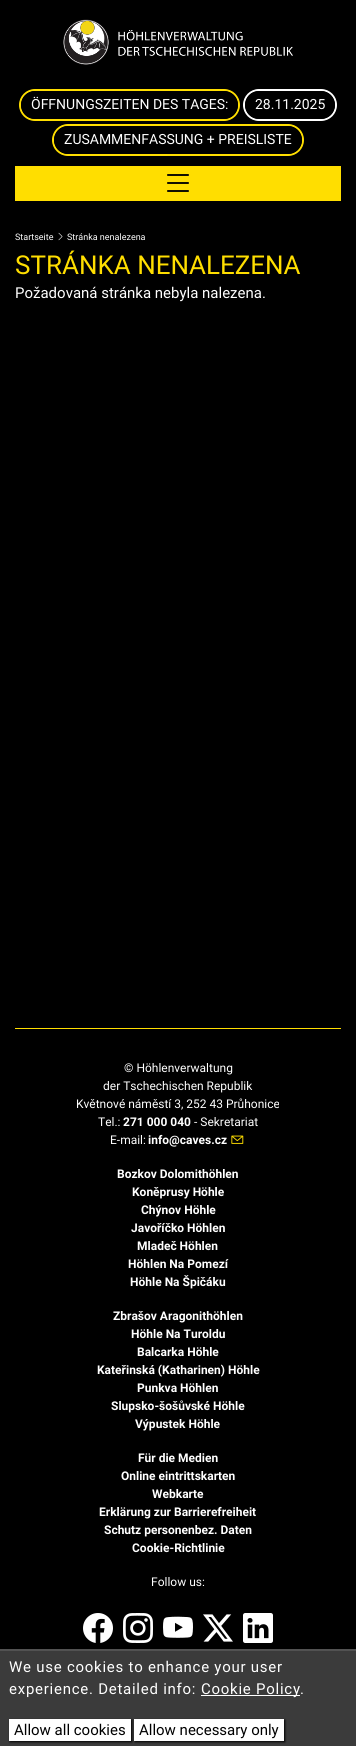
import math
import cairocffi as cairo

surface = cairo.ImageSurface(cairo.FORMAT_RGB24, 356, 1746)
ctx = cairo.Context(surface)
options = cairo.FontOptions()
options.set_hint_metrics(cairo.HINT_METRICS_OFF)
options.set_hint_style(cairo.HINT_STYLE_NONE)
ctx.set_font_options(options)
ctx.set_miter_limit(4)


def rgb(r, g, b):
    ctx.set_source_rgb(r / 255, g / 255, b / 255)


def face(family, size, italic, bold):
    ctx.select_font_face(family, cairo.FONT_SLANT_ITALIC if italic else cairo.FONT_SLANT_NORMAL, cairo.FONT_WEIGHT_BOLD if bold else cairo.FONT_WEIGHT_NORMAL)
    ctx.set_font_size(size)


def label(x, y, s):
    ctx.move_to(x, y)
    ctx.show_text(s)


def tracked(x, y, s, letter, word):
    ctx.move_to(x, y)
    for ch in s:
        ctx.show_text(ch)
        ctx.rel_move_to(letter + word * (ch == ' '), 0)


def rect(x, y, w, h):
    ctx.rectangle(x, y, w, h)
    ctx.fill()


def rrect(x, y, w, h, r):
    ctx.new_sub_path()
    for i, (u, v) in enumerate([(x + w - r, y + h - r), (x + r, y + h - r), (x + r, y + r), (x + w - r, y + r)]):
        ctx.arc(u, v, r, i * math.pi / 2, (i + 1) * math.pi / 2)
    ctx.close_path()


def soft_shadow(x, y, w, h, r, blur, alpha):
    ctx.push_group_with_content(cairo.CONTENT_ALPHA)
    ctx.set_operator(cairo.OPERATOR_SOURCE)
    for i in range(15, -16, -2):
        e = blur * i / 6
        if min(w, h) + 2 * e > 0:
            ctx.set_source_rgba(0, 0, 0, alpha * math.erfc((i - 1) / 8.5) / 2)
            rrect(x - e, y - e, w + 2 * e, h + 2 * e, max(0, min(r + e + blur * .6, min(w, h) / 2 + e)))
            ctx.fill()
    ctx.mask(ctx.pop_group())


def image(path, x, y, w, h):
    ctx.save()
    ctx.set_source_surface(cairo.ImageSurface.create_from_png(path), x, y)
    ctx.rectangle(x, y, w, h)
    ctx.fill()
    ctx.restore()


rgb(0, 0, 0)
ctx.paint()
image('image0.png', 63, 19, 230, 46)
rrect(20, 90, 219, 30, 15)
rgb(255, 222, 0)
ctx.stroke()
rgb(0, 0, 0)
rrect(21, 91, 217, 28, 14)
ctx.fill()
face('Roboto', 14, 0, 0)
rgb(255, 255, 255)
label(31, 109, 'ÖFFNUNGSZEITEN DES TAGES:')
rrect(244, 90, 92, 30, 15)
ctx.stroke()
rgb(0, 0, 0)
rrect(245, 91, 90, 28, 14)
ctx.fill()
rgb(255, 255, 255)
label(255, 109, '28.11.2025')
rrect(53, 125, 250, 30, 15)
rgb(255, 222, 0)
ctx.stroke()
rgb(0, 0, 0)
rrect(54, 126, 248, 28, 14)
ctx.fill()
rgb(255, 255, 255)
label(64, 144, 'ZUSAMMENFASSUNG + PREISLISTE')
rgb(255, 222, 0)
rect(15, 166, 326, 35)
image('image1.png', 167, 174, 22, 18)
face('Roboto', 9, 0, 0)
rgb(255, 255, 255)
label(15, 240, 'Startseite')
image('image2.png', 58, 232, 5, 9)
label(67, 240, 'Stránka nenalezena')
face('Roboto', 26, 0, 0)
rgb(255, 222, 0)
label(15, 274, 'STRÁNKA NENALEZENA')
face('Roboto', 15, 0, 0)
rgb(255, 255, 255)
label(15, 298, 'Požadovaná stránka nebyla nalezena.')
rgb(255, 222, 0)
rect(15, 1028, 326, 1)
face('Roboto', 12, 0, 0)
rgb(255, 255, 255)
label(124, 1072, '© Höhlenverwaltung')
label(103, 1090, 'der Tschechischen Republik')
label(76, 1108, 'Květnové náměstí 3, 252 43 Průhonice')
label(98, 1126, 'Tel.:')
face('Roboto', 12, 0, 1)
label(123, 1126, '271 000 040')
face('Roboto', 12, 0, 0)
label(194, 1126, '- Sekretariat')
label(110, 1144, 'E-mail:')
face('Roboto', 12, 0, 1)
label(148, 1144, 'info@caves.cz')
image('image3.png', 231, 1135, 13, 9)
label(117, 1178, 'Bozkov Dolomithöhlen')
label(132, 1196, 'Koněprusy Höhle')
label(141, 1214, 'Chýnov Höhle')
label(131, 1232, 'Javoříčko Höhlen')
label(137, 1250, 'Mladeč Höhlen')
label(128, 1268, 'Höhlen Na Pomezí')
label(130, 1286, 'Höhle Na Špičáku')
label(113, 1320, 'Zbrašov Aragonithöhlen')
label(131, 1338, 'Höhle Na Turoldu')
label(137, 1356, 'Balcarka Höhle')
label(97, 1374, 'Kateřinská (Katharinen) Höhle')
label(137, 1392, 'Punkva Höhlen')
label(111, 1410, 'Slupsko-šošůvské Höhle')
label(135, 1428, 'Výpustek Höhle')
label(138, 1462, 'Für die Medien')
label(121, 1480, 'Online eintrittskarten')
label(152, 1498, 'Webkarte')
label(99, 1516, 'Erklärung zur Barrierefreiheit')
label(104, 1534, 'Schutz personenbez. Daten')
label(132, 1552, 'Cookie-Richtlinie')
face('Roboto', 12, 0, 0)
label(151, 1586, 'Follow us:')
image('image4.png', 83, 1613, 30, 30)
image('image5.png', 123, 1613, 30, 30)
image('image6.png', 163, 1616, 30, 22)
image('image7.png', 203, 1614, 30, 28)
image('image8.png', 243, 1613, 30, 30)
rgb(59, 59, 59)
rect(0, 1651, 356, 95)
rgb(82, 82, 82)
rect(0, 1649, 356, 2)
face('Roboto', 15, 0, 0)
rgb(255, 255, 255)
tracked(9, 1672, 'We use cookies to enhance your user', 0.75, 0)
tracked(9, 1694, 'experience. Detailed info:', 0.75, 0)
rect(201, 1695, 99, 1)
tracked(201, 1694, 'Cookie Policy', 0.75, 0)
tracked(300, 1694, '.', 0.75, 0)
rgb(0, 0, 0)
soft_shadow(10, 1720, 122, 22, 0, 1, 1)
rgb(255, 255, 255)
rect(9, 1719, 122, 22)
rgb(0, 0, 0)
label(14, 1735, 'Allow all cookies')
rgb(0, 0, 0)
soft_shadow(135, 1720, 150, 22, 0, 1, 1)
rgb(255, 255, 255)
rect(134, 1719, 150, 22)
rgb(0, 0, 0)
label(139, 1735, 'Allow necessary only')
surface.write_to_png('render.png')
